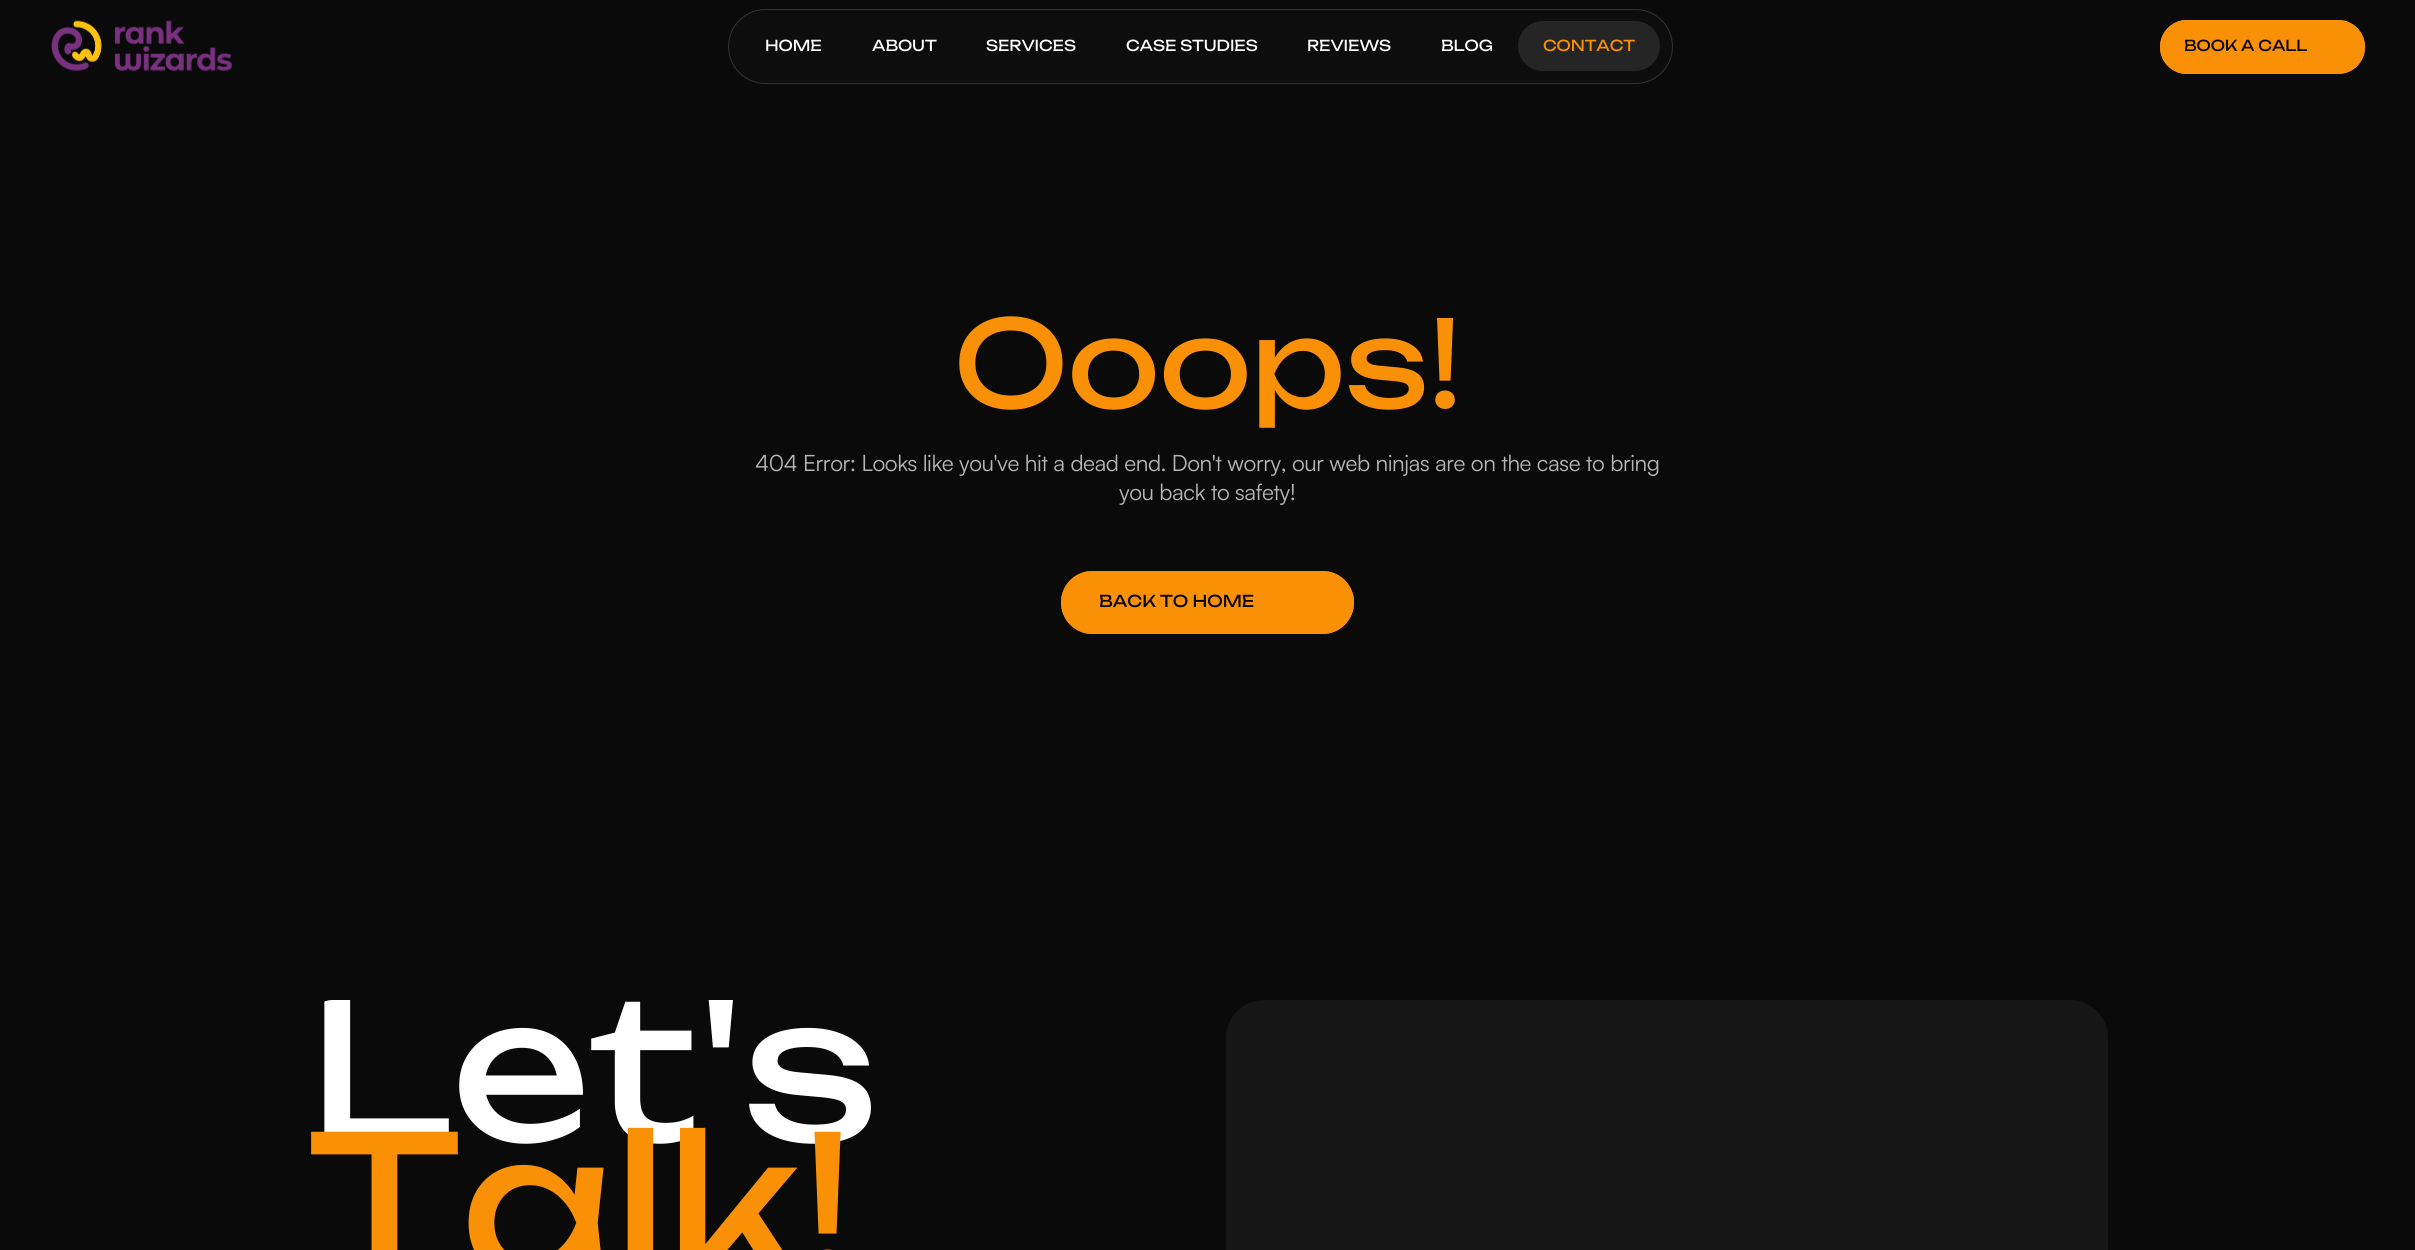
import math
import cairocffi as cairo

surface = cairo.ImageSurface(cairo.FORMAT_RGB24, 2415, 1250)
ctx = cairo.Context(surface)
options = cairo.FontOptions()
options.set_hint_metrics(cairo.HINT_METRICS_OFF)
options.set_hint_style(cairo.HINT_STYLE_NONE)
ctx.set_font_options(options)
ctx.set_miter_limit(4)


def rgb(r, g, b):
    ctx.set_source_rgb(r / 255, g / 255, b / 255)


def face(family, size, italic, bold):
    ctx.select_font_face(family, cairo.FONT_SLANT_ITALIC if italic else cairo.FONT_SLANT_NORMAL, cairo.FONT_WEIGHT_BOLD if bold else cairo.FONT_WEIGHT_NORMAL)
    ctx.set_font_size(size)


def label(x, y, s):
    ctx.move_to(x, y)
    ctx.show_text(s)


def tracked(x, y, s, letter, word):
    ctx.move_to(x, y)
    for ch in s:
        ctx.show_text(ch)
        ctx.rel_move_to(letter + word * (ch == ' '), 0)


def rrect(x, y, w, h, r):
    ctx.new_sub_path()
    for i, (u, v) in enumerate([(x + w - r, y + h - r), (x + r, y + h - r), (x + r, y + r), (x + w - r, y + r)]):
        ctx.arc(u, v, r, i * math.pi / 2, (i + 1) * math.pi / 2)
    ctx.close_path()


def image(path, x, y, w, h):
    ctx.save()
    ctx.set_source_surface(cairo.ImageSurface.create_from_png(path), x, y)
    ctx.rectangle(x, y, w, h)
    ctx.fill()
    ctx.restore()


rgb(10, 10, 10)
ctx.paint()
image('image0.png', 51, 20, 182, 51)
rgb(13, 13, 13)
rrect(728, 9, 945, 75, 37.5)
ctx.fill()
rgb(86, 86, 86)
ctx.arc(794.5, 46.5, 0.5, 0, 2 * math.pi)
ctx.fill()
ctx.arc(905.5, 46.5, 0.5, 0, 2 * math.pi)
ctx.fill()
ctx.arc(1033.5, 46.5, 0.5, 0, 2 * math.pi)
ctx.fill()
ctx.arc(1194.5, 46.5, 0.5, 0, 2 * math.pi)
ctx.fill()
ctx.arc(1350.5, 46.5, 0.5, 0, 2 * math.pi)
ctx.fill()
ctx.arc(1468.5, 46.5, 0.5, 0, 2 * math.pi)
ctx.fill()
rgb(37, 37, 37)
rrect(1518, 21, 142, 50, 25)
ctx.fill()
rgb(102, 102, 102)
ctx.arc(1590.5, 46.5, 0.5, 0, 2 * math.pi)
ctx.fill()
rrect(728.5, 9.5, 944, 74, 37)
rgb(49, 49, 49)
ctx.set_line_width(1)
ctx.stroke()
face('Unbounded', 15, 0, 0)
rgb(255, 255, 255)
tracked(765, 51, 'HOME', -0.1, 0)
tracked(872, 51, 'ABOUT', -0.1, 0)
tracked(986, 51, 'SERVICES', -0.1, 0)
tracked(1126, 51, 'CASE STUDIES', -0.1, 0)
tracked(1307, 51, 'REVIEWS', -0.1, 0)
tracked(1441, 51, 'BLOG', -0.1, 0)
rgb(250, 144, 5)
tracked(1543, 51, 'CONTACT', -0.1, 0)
rrect(2160, 20, 205, 54, 27)
ctx.fill()
rrect(2160.5, 20.5, 204, 53, 26.5)
ctx.stroke()
rgb(6, 0, 8)
tracked(2184, 51, 'BOOK A CALL', -0.1, 0)
face('Unbounded', 120, 0, 0)
rgb(250, 144, 5)
label(954, 408, 'Ooops!')
face('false', 22.5, 0, 0)
rgb(182, 182, 182)
tracked(755, 471, '404 Error: Looks like you\'ve hit a dead end. Don\'t worry, our web ninjas are on the case to bring', -0.45, 0)
tracked(1119, 500, 'you back to safety!', -0.45, 0)
rgb(250, 144, 5)
ctx.new_path()
ctx.move_to(1092.5, 571)
ctx.line_to(1291, 571)
ctx.line_to(1291, 634)
ctx.line_to(1092.5, 634)
ctx.curve_to(1075, 634, 1061, 620, 1061, 602.5)
ctx.curve_to(1061, 585, 1075, 571, 1092.5, 571)
ctx.close_path()
ctx.fill()
ctx.new_path()
ctx.move_to(1291, 571)
ctx.line_to(1322.5, 571)
ctx.curve_to(1340, 571, 1354, 585, 1354, 602.5)
ctx.curve_to(1354, 620, 1340, 634, 1322.5, 634)
ctx.line_to(1291, 634)
ctx.close_path()
ctx.fill()
rrect(1061.5, 571.5, 292, 62, 31)
ctx.stroke()
face('Unbounded', 16.25, 0, 0)
rgb(0, 0, 0)
label(1099, 607, 'BACK TO HOME')
ctx.save()
rrect(308, 1000, 1800, 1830, 25)
ctx.clip()
face('Unbounded', 195, 0, 0)
rgb(255, 255, 255)
label(308, 1141, 'Let\'s')
ctx.restore()
face('Unbounded', 195, 0, 0)
rgb(250, 144, 5)
label(308, 1278, 'Talk!')
rgb(22, 22, 22)
rrect(1226, 1000, 882, 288, 38)
ctx.fill()
surface.write_to_png('render.png')
